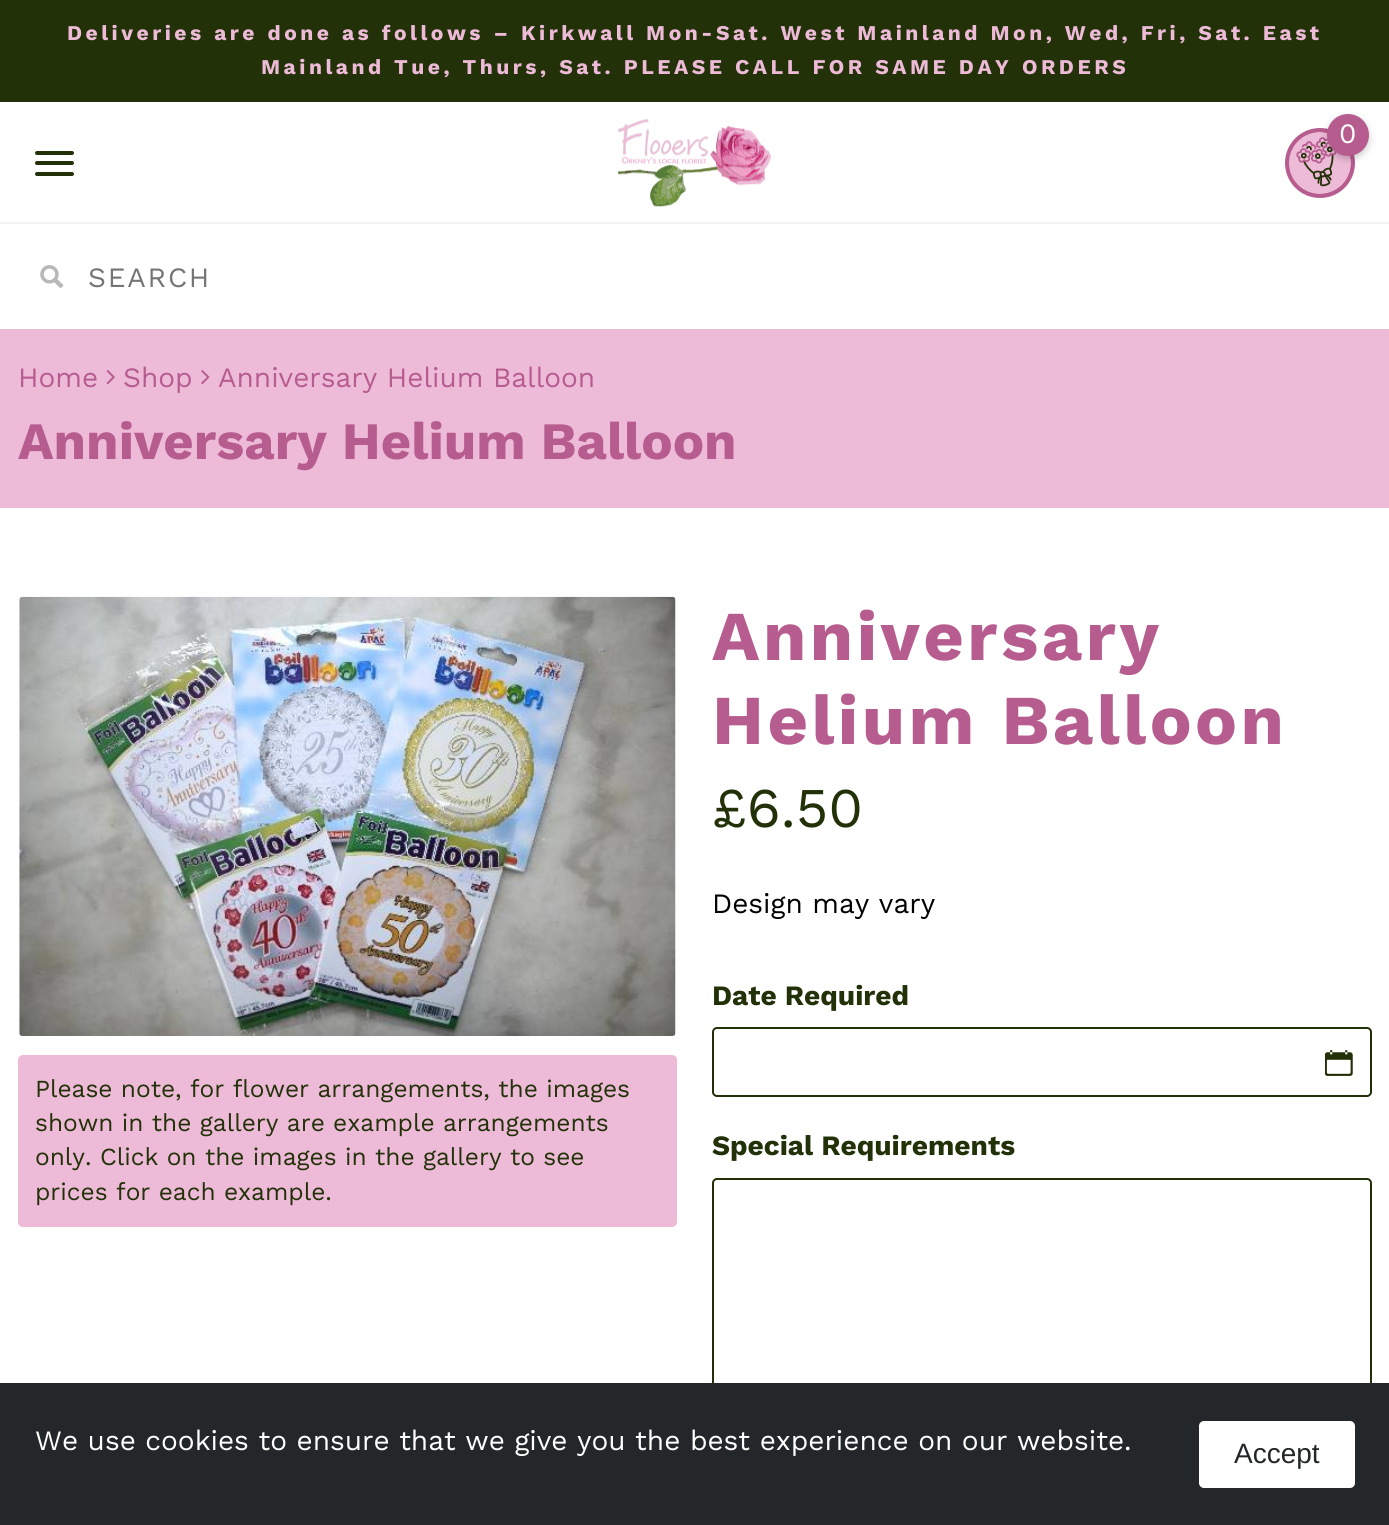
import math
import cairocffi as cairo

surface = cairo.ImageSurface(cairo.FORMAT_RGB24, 1389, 1525)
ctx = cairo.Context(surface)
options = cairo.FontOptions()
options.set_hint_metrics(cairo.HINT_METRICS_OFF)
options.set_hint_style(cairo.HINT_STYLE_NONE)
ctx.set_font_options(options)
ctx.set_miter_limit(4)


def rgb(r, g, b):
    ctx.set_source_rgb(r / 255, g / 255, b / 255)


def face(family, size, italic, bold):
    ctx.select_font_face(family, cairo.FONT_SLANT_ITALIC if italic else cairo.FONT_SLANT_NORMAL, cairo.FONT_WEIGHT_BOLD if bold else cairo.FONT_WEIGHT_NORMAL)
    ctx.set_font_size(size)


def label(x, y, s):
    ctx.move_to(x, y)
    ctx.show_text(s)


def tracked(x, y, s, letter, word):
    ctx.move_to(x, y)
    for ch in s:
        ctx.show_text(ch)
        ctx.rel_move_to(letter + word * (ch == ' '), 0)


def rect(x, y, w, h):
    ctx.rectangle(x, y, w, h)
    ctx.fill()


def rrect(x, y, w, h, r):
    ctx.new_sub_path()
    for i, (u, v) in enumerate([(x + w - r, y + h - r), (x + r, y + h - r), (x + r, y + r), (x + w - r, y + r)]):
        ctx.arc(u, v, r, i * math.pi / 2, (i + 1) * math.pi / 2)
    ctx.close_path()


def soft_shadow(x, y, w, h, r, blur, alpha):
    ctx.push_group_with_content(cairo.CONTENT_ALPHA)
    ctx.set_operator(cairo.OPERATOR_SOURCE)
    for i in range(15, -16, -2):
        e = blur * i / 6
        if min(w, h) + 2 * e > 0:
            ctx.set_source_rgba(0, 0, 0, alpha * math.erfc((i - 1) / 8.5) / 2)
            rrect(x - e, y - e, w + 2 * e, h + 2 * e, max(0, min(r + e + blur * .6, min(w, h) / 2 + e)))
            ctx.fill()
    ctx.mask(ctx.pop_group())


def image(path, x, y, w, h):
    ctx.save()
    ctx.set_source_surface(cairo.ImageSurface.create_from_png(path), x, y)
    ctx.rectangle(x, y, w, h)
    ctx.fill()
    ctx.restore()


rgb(255, 255, 255)
ctx.paint()
rgb(34, 49, 8)
rect(0, 0, 1389, 102)
face('Work Sans', 21, 0, 1)
rgb(237, 187, 215)
tracked(67, 40, 'Deliveries are done as follows – Kirkwall Mon-Sat. West Mainland Mon, Wed, Fri, Sat. East', 3.5, 0)
tracked(261, 74, 'Mainland Tue, Thurs, Sat. PLEASE CALL FOR SAME DAY ORDERS', 3.5, 0)
rgb(242, 243, 246)
rect(0, 222, 1389, 2)
image('image0.png', 618, 119, 154, 88)
rgb(237, 187, 215)
ctx.arc(1320, 163, 33, 0, 2 * math.pi)
ctx.fill_preserve()
rgb(183, 92, 143)
ctx.set_line_width(4)
ctx.stroke()
rrect(1287, 131, 65, 64, 32)
ctx.set_line_width(2)
ctx.stroke()
image('image1.png', 1296, 137, 41, 50)
rgb(0, 0, 0)
soft_shadow(1327, 117, 42, 42, 21, 3.5, 0.2)
rgb(183, 92, 143)
ctx.arc(1348, 135, 21, 0, 2 * math.pi)
ctx.fill()
face('Work Sans', 28, 0, 0)
rgb(255, 255, 255)
label(1339, 143, '0')
rgb(34, 49, 8)
rrect(35, 151, 39, 4, 2)
ctx.fill()
rrect(35, 161, 39, 4, 2)
ctx.fill()
rrect(35, 172, 39, 4, 2)
ctx.fill()
image('image2.png', 40, 265, 24, 24)
rgb(117, 117, 117)
tracked(88, 287, 'SEARCH', 1.75, 0)
rgb(237, 187, 215)
rect(0, 329, 1389, 179)
rgb(183, 92, 143)
label(18, 387, 'Home')
image('image3.png', 106, 370, 9, 15)
label(123, 387, 'Shop')
image('image4.png', 201, 370, 9, 15)
label(218, 387, 'Anniversary Helium Balloon')
face('Work Sans', 52.5, 0, 1)
label(18, 459, 'Anniversary Helium Balloon')
image('image5.png', 19, 596, 657, 440)
rgb(237, 187, 215)
rrect(18, 1055, 659, 172, 5)
ctx.fill()
face('Work Sans', 24.5, 0, 0)
rgb(34, 49, 8)
label(35, 1097, 'Please note, for flower arrangements, the images')
label(35, 1131, 'shown in the gallery are example arrangements')
label(35, 1165, 'only. Click on the images in the gallery to see')
label(35, 1200, 'prices for each example.')
face('Work Sans', 70, 0, 1)
rgb(183, 92, 143)
tracked(712, 660, 'Anniversary', 3.5, 0)
tracked(712, 744, 'Helium Balloon', 3.5, 0)
face('Work Sans', 56, 0, 0)
rgb(34, 49, 8)
label(712, 827, '£6.50')
face('Work Sans', 28, 0, 0)
rgb(0, 0, 0)
label(712, 913, 'Design may vary')
face('Work Sans', 28, 0, 1)
rgb(34, 49, 8)
label(712, 1005, 'Date Required')
image('image6.png', 1325, 1050, 28, 26)
rrect(713, 1028, 658, 68, 4)
ctx.stroke()
label(712, 1155, 'Special Requirements')
rrect(713, 1179, 658, 260, 4)
ctx.stroke()
rgb(36, 39, 41)
rect(0, 1383, 1389, 142)
face('Work Sans', 28, 0, 0)
rgb(255, 255, 255)
label(35, 1450, 'We use cookies to ensure that we give you the best experience on our website.')
rrect(1199, 1421, 156, 67, 5)
ctx.fill()
face('Liberation Sans', 28, 0, 0)
rgb(36, 39, 41)
label(1234, 1463, 'Accept')
surface.write_to_png('render.png')
